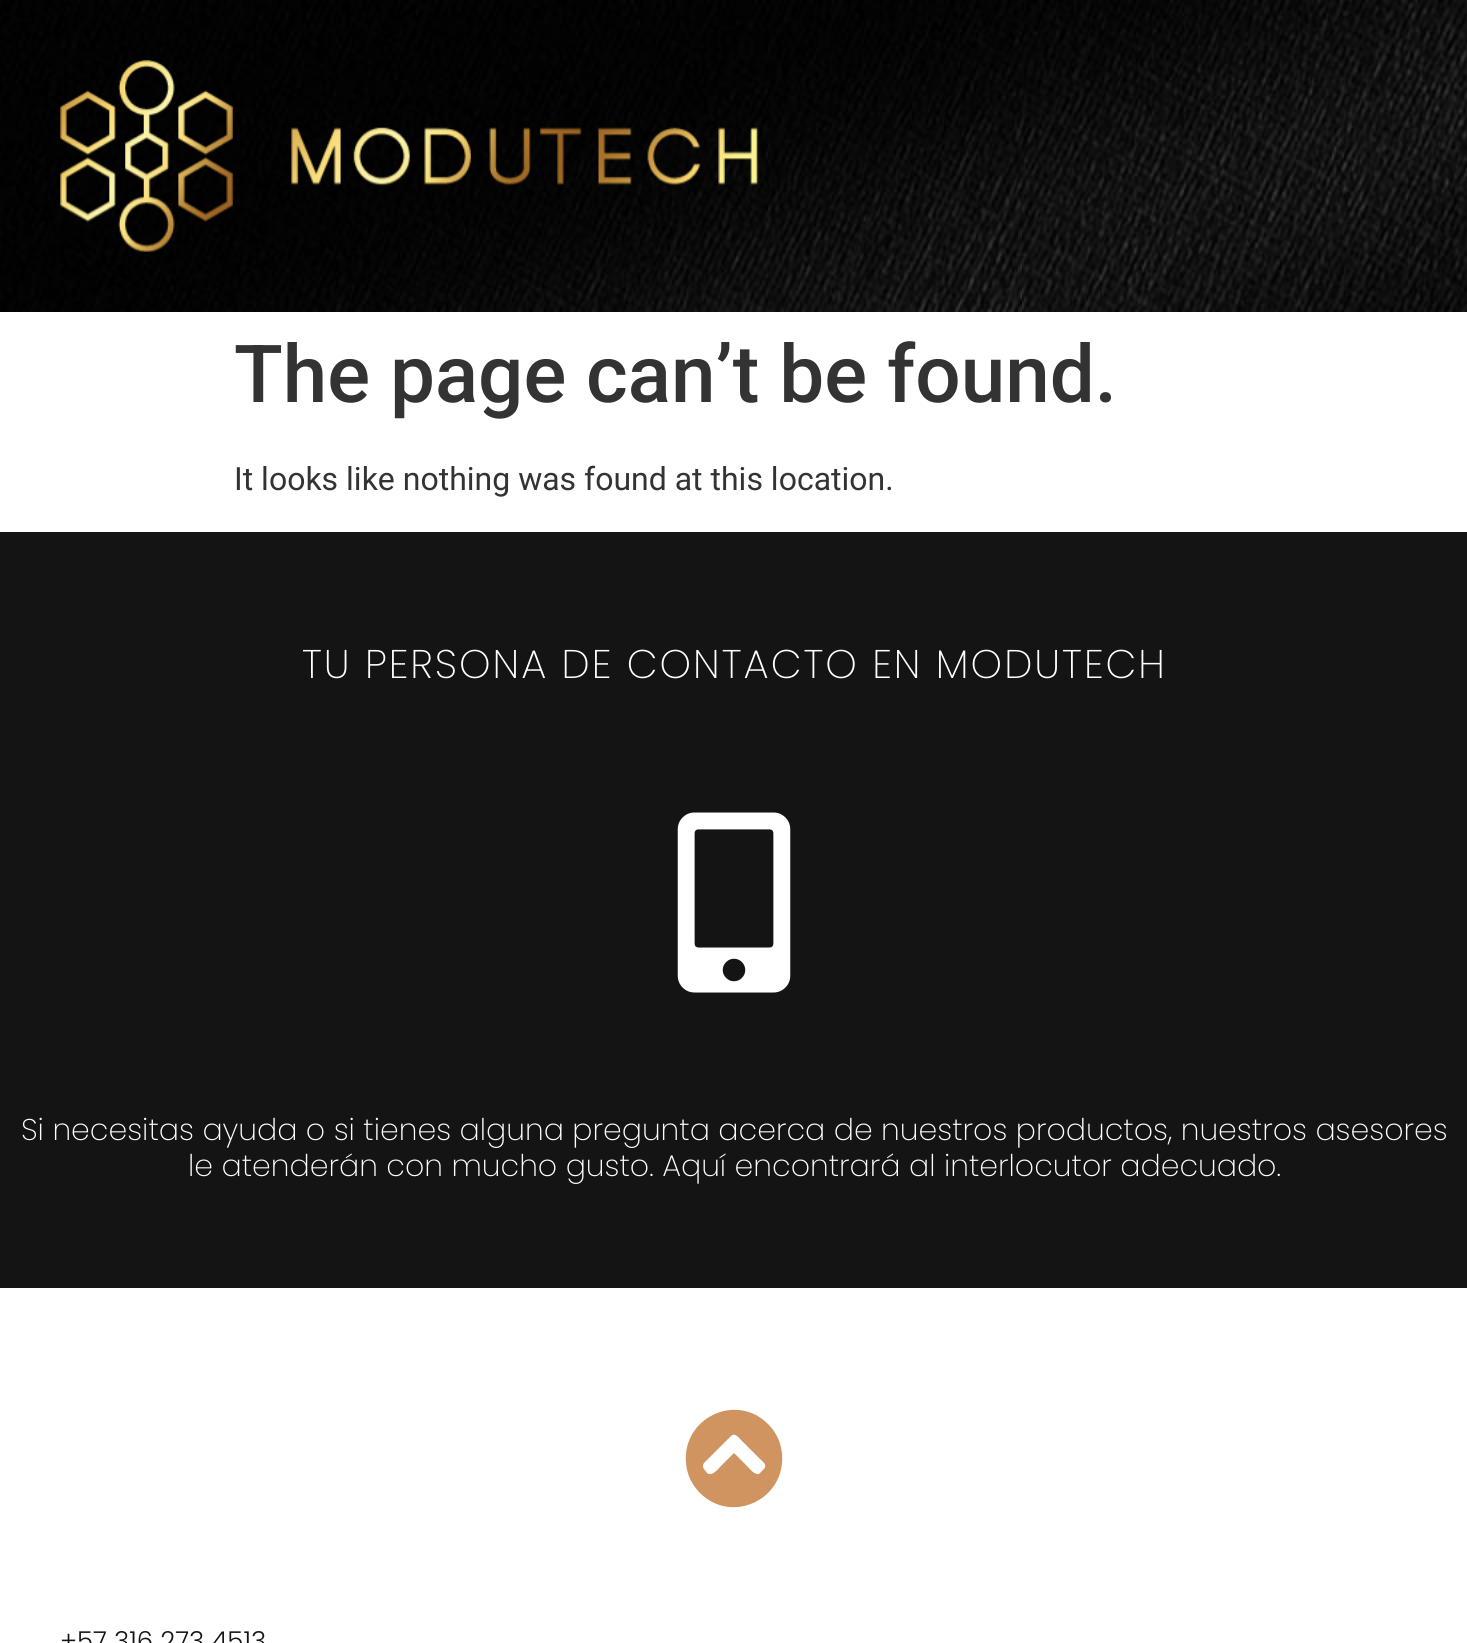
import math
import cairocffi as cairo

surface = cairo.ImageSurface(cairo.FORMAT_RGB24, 1467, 1643)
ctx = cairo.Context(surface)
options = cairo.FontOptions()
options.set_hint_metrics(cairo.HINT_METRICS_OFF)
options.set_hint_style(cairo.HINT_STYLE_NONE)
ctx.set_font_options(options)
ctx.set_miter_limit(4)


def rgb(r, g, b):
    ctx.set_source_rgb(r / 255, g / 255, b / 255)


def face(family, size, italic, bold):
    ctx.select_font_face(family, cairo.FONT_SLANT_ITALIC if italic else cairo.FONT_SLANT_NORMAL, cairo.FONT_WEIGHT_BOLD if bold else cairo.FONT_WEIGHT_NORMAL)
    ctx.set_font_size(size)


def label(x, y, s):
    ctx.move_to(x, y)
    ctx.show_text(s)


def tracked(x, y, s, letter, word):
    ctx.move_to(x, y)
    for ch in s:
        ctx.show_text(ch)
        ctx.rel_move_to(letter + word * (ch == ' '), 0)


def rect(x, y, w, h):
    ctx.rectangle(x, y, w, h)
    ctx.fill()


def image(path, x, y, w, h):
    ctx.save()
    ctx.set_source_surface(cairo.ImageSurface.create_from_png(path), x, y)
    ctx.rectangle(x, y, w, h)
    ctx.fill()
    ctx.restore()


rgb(255, 255, 255)
ctx.paint()
image('image0.png', 0, 0, 1467, 312)
image('image1.png', 60, 60, 699, 192)
face('Roboto Medium', 80, 0, 0)
rgb(51, 51, 51)
label(234, 402, 'The page can’t be found.')
face('Roboto', 32, 0, 0)
label(234, 490, 'It looks like nothing was found at this location.')
rgb(20, 20, 20)
rect(0, 532, 1467, 756)
face('Poppins ExtraLight', 40, 0, 0)
rgb(255, 255, 255)
tracked(302, 678, 'TU PERSONA DE CONTACTO EN MODUTECH', 2, 0)
image('image2.png', 677, 812, 114, 181)
face('Poppins ExtraLight', 30, 0, 0)
label(21, 1140, 'Si necesitas ayuda o si tienes alguna pregunta acerca de nuestros productos, nuestros asesores')
label(188, 1176, 'le atenderán con mucho gusto. Aquí encontrará al interlocutor adecuado.')
rgb(207, 148, 95)
ctx.new_path()
ctx.move_to(700, 1493)
ctx.curve_to(692, 1485, 687, 1475, 686, 1463)
ctx.curve_to(682, 1418, 736, 1392, 768, 1424)
ctx.curve_to(776, 1432, 781, 1442, 782, 1454)
ctx.curve_to(786, 1499, 732, 1525, 700, 1493)
ctx.close_path()
ctx.move_to(731, 1436)
ctx.line_to(704, 1463)
ctx.curve_to(701, 1467, 705, 1470, 707, 1473)
ctx.curve_to(712, 1477, 718, 1469, 721, 1466)
ctx.line_to(734, 1453)
ctx.line_to(747, 1466)
ctx.curve_to(749, 1468, 754, 1475, 759, 1474)
ctx.line_to(763, 1470)
ctx.curve_to(768, 1465, 764, 1463, 759, 1458)
ctx.line_to(742, 1441)
ctx.curve_to(739, 1438, 735, 1432, 731, 1436)
ctx.close_path()
ctx.fill()
face('Poppins Light', 26, 0, 0)
rgb(20, 20, 20)
label(60, 1650, '+57 316 273 4513')
surface.write_to_png('render.png')
